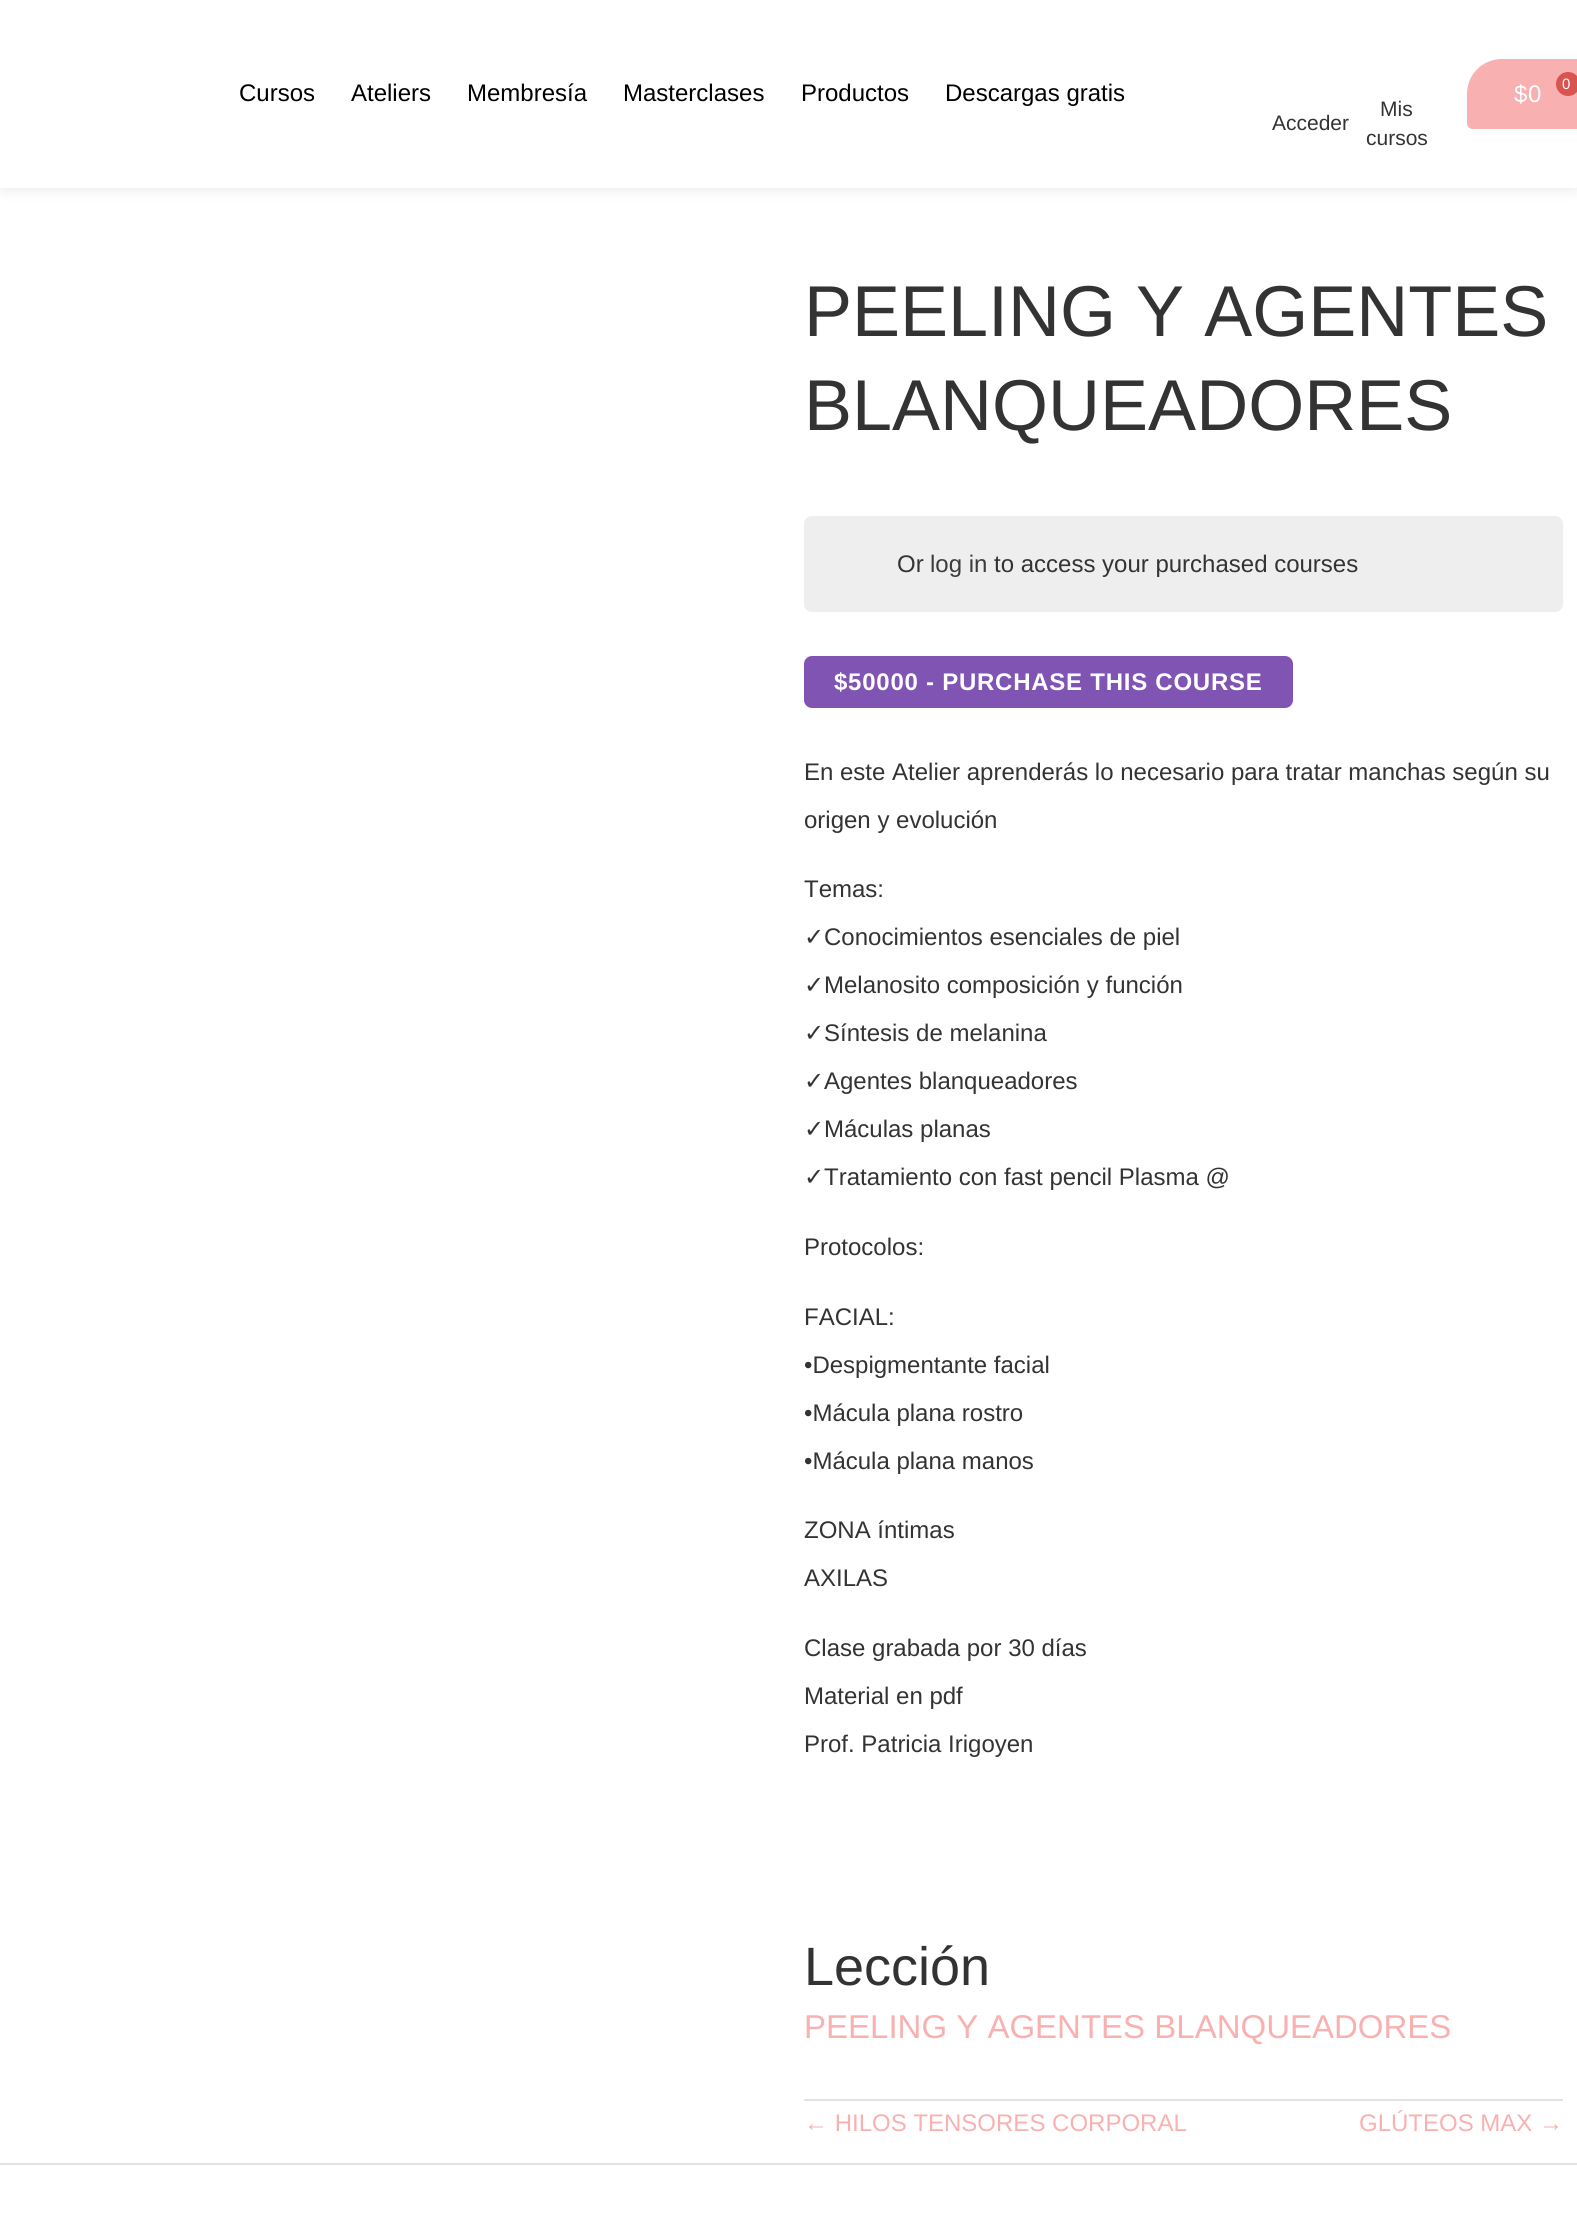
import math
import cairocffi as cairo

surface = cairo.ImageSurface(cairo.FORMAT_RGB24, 1577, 2216)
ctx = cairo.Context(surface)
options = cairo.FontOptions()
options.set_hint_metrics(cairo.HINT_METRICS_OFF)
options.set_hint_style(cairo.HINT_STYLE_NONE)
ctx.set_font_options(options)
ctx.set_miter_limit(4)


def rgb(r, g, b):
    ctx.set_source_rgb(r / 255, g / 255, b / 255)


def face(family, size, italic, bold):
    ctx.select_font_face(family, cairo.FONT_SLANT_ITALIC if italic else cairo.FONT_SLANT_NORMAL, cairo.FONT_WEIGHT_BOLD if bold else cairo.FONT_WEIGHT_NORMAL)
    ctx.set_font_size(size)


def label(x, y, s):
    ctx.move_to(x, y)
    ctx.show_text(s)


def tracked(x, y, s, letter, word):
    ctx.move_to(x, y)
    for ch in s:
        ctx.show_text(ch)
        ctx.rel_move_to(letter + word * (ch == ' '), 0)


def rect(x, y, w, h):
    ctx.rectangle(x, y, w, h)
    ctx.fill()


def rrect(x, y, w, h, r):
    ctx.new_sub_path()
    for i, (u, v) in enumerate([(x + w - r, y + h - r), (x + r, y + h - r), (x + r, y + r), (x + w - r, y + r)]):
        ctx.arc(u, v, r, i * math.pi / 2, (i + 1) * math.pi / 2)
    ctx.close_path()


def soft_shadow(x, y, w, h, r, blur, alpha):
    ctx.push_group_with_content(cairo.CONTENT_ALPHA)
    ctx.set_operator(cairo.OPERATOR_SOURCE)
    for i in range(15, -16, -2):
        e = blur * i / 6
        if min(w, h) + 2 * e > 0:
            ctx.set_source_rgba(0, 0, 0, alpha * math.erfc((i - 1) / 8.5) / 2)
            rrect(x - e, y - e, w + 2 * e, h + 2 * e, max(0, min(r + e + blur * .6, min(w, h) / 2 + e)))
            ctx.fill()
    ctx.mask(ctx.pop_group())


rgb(255, 255, 255)
ctx.paint()
ctx.save()
ctx.set_fill_rule(cairo.FILL_RULE_EVEN_ODD)
ctx.new_path()
ctx.move_to(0, 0)
ctx.line_to(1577, 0)
ctx.line_to(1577, 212)
ctx.line_to(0, 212)
ctx.close_path()
ctx.move_to(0, 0)
ctx.line_to(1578, 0)
ctx.line_to(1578, 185)
ctx.curve_to(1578, 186.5, 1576.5, 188, 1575, 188)
ctx.line_to(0, 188)
ctx.close_path()
ctx.clip()
rgb(0, 0, 0)
soft_shadow(0, 0, 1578, 188, 3, 7.5, 0.1)
ctx.restore()
face('Liberation Sans', 24, 0, 0)
rgb(0, 0, 0)
label(239, 101, 'Cursos')
label(351, 101, 'Ateliers')
label(467, 101, 'Membresía')
label(623, 101, 'Masterclases')
label(801, 101, 'Productos')
label(945, 101, 'Descargas gratis')
rgb(248, 177, 176)
ctx.new_path()
ctx.move_to(1502, 60)
ctx.line_to(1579, 60)
ctx.curve_to(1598, 60, 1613, 75, 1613, 94)
ctx.curve_to(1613, 113, 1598, 128, 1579, 128)
ctx.line_to(1473, 128)
ctx.curve_to(1470, 128, 1468, 126, 1468, 123)
ctx.line_to(1468, 94)
ctx.curve_to(1468, 75, 1483, 60, 1502, 60)
ctx.close_path()
ctx.fill_preserve()
ctx.stroke()
rgb(255, 255, 255)
tracked(1514, 102, '$0', 0.75, 0)
rgb(217, 83, 79)
ctx.new_path()
ctx.arc(1568, 84, 12, 0, 2 * math.pi)
ctx.fill()
face('Liberation Sans', 15, 0, 0)
rgb(255, 255, 255)
tracked(1562, 89, '0', 0.75, 0)
face('Liberation Sans', 21, 0, 0)
rgb(51, 51, 51)
label(1272, 130, 'Acceder')
label(1380, 116, 'Mis')
label(1366, 145, 'cursos')
rgb(226, 226, 226)
rect(0, 2163, 1577, 2)
face('Liberation Sans', 72, 0, 0)
rgb(51, 51, 51)
label(804, 336, 'PEELING Y AGENTES')
label(804, 430, 'BLANQUEADORES')
rgb(238, 238, 238)
rrect(804, 516, 759, 96, 8)
ctx.fill()
face('Liberation Sans', 24, 0, 0)
rgb(51, 51, 51)
label(897, 572, 'Or')
rgb(60, 60, 60)
label(930, 572, 'log in')
rgb(51, 51, 51)
label(994, 572, 'to access your purchased courses')
rgb(127, 84, 179)
rrect(804, 656, 489, 52, 8)
ctx.fill()
face('Liberation Sans', 24, 0, 1)
rgb(255, 255, 255)
tracked(834, 690, '$50000 - PURCHASE THIS COURSE', 0.75, 0)
face('Liberation Sans', 24, 0, 0)
rgb(51, 51, 51)
label(804, 780, 'En este Atelier aprenderás lo necesario para tratar manchas según su')
label(804, 828, 'origen y evolución')
label(804, 897, 'Temas:')
face('DejaVu Sans', 24, 0, 0)
label(804, 945, '✓')
face('Liberation Sans', 24, 0, 0)
label(824, 945, 'Conocimientos esenciales de piel')
face('DejaVu Sans', 24, 0, 0)
label(804, 993, '✓')
face('Liberation Sans', 24, 0, 0)
label(824, 993, 'Melanosito composición y función')
face('DejaVu Sans', 24, 0, 0)
label(804, 1041, '✓')
face('Liberation Sans', 24, 0, 0)
label(824, 1041, 'Síntesis de melanina')
face('DejaVu Sans', 24, 0, 0)
label(804, 1089, '✓')
face('Liberation Sans', 24, 0, 0)
label(824, 1089, 'Agentes blanqueadores')
face('DejaVu Sans', 24, 0, 0)
label(804, 1137, '✓')
face('Liberation Sans', 24, 0, 0)
label(824, 1137, 'Máculas planas')
face('DejaVu Sans', 24, 0, 0)
label(804, 1185, '✓')
face('Liberation Sans', 24, 0, 0)
label(824, 1185, 'Tratamiento con fast pencil Plasma @')
label(804, 1255, 'Protocolos:')
label(804, 1325, 'FACIAL:')
label(804, 1373, '•Despigmentante facial')
label(804, 1421, '•Mácula plana rostro')
label(804, 1469, '•Mácula plana manos')
label(804, 1538, 'ZONA íntimas')
label(804, 1586, 'AXILAS')
label(804, 1656, 'Clase grabada por 30 días')
label(804, 1704, 'Material en pdf')
label(804, 1752, 'Prof. Patricia Irigoyen')
face('Liberation Sans', 54, 0, 0)
label(804, 1985, 'Lección')
rgb(226, 226, 226)
rect(804, 2099, 759, 2)
face('Liberation Sans', 33, 0, 0)
rgb(248, 177, 176)
label(804, 2038, 'PEELING Y AGENTES BLANQUEADORES')
face('Liberation Sans', 24, 0, 0)
label(804, 2131, '← HILOS TENSORES CORPORAL')
label(1359, 2131, 'GLÚTEOS MAX →')
surface.write_to_png('render.png')
